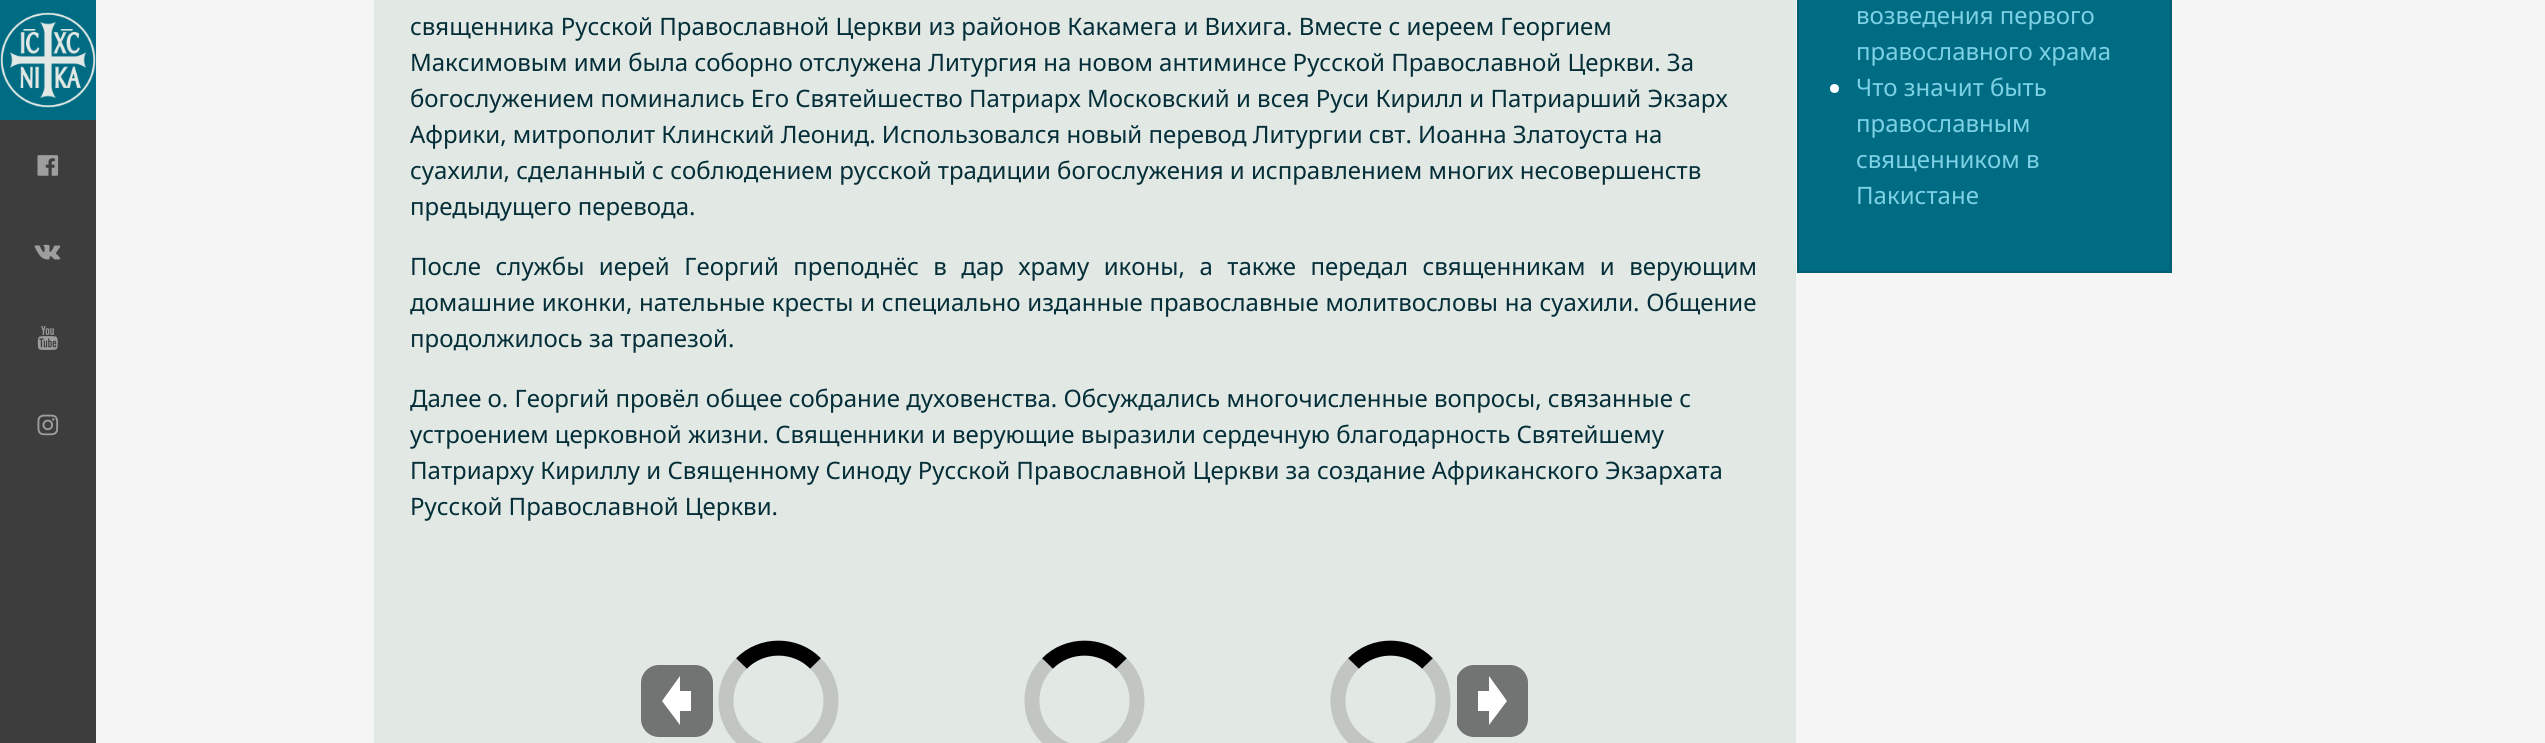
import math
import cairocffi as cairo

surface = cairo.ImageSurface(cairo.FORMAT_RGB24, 2545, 743)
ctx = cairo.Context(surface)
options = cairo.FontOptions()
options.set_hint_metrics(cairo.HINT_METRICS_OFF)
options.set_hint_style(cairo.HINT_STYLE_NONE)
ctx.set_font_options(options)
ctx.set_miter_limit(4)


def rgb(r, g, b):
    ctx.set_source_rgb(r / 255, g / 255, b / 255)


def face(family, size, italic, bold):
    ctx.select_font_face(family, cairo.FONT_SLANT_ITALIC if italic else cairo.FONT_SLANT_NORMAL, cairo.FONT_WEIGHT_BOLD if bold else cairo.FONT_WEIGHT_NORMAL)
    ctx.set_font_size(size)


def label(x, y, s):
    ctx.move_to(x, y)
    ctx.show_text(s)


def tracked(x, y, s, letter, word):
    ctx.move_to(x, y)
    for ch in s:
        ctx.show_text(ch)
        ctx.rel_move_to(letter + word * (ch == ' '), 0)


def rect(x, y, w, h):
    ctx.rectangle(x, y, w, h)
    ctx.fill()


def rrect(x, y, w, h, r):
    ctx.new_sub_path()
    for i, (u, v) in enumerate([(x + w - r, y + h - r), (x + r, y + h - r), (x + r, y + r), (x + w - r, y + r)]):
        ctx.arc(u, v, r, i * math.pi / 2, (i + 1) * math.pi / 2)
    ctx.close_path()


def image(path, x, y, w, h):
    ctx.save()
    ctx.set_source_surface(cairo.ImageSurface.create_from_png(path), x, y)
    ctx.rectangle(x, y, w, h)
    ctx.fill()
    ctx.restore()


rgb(245, 245, 245)
ctx.paint()
rgb(61, 61, 61)
rect(0, 120, 96, 623)
rgb(0, 108, 132)
rect(0, 0, 96, 120)
image('image0.png', 0, 12, 96, 96)
image('image1.png', 37, 155, 22, 21)
image('image2.png', 34, 244, 27, 16)
image('image3.png', 37, 325, 21, 25)
image('image4.png', 37, 414, 22, 22)
rgb(226, 232, 228)
rect(374, 0, 1422, 743)
face('Noto Sans', 24, 0, 0)
rgb(4, 46, 56)
label(410, 35, 'священника Русской Православной Церкви из районов Какамега и Вихига. Вместе с иереем Георгием')
label(410, 71, 'Максимовым ими была соборно отслужена Литургия на новом антиминсе Русской Православной Церкви. За')
label(410, 107, 'богослужением поминались Его Святейшество Патриарх Московский и всея Руси Кирилл и Патриарший Экзарх')
label(410, 143, 'Африки, митрополит Клинский Леонид. Использовался новый перевод Литургии свт. Иоанна Златоуста на')
label(410, 179, 'суахили, сделанный с соблюдением русской традиции богослужения и исправлением многих несовершенств')
label(410, 215, 'предыдущего перевода.')
tracked(410, 275, 'После службы иерей Георгий преподнёс в дар храму иконы, а также передал священникам и верующим', 0, 8.25)
tracked(410, 311, 'домашние иконки, нательные кресты и специально изданные православные молитвословы на суахили. Общение', 0, 0.5)
label(410, 347, 'продолжилось за трапезой.')
label(410, 407, 'Далее о. Георгий провёл общее собрание духовенства. Обсуждались многочисленные вопросы, связанные с')
label(410, 443, 'устроением церковной жизни. Священники и верующие выразили сердечную благодарность Святейшему')
label(410, 479, 'Патриарху Кириллу и Священному Синоду Русской Православной Церкви за создание Африканского Экзархата')
label(410, 515, 'Русской Православной Церкви.')
rgb(113, 116, 114)
rrect(641, 665, 72, 72, 18)
ctx.fill()
rgb(255, 255, 255)
ctx.new_path()
ctx.move_to(680, 691)
ctx.line_to(691, 691)
ctx.line_to(691, 711)
ctx.line_to(680, 711)
ctx.close_path()
ctx.move_to(662, 701)
ctx.line_to(680, 725)
ctx.move_to(680, 725)
ctx.line_to(662, 701)
ctx.line_to(680, 676)
ctx.fill()
ctx.new_path()
ctx.move_to(741.5, 663.5)
ctx.curve_to(761.5, 643, 795.5, 643, 815.5, 663.5)
rgb(0, 0, 0)
ctx.set_line_width(15)
ctx.stroke()
ctx.new_path()
ctx.move_to(815.5, 663.5)
ctx.curve_to(825.5, 673, 831, 686.5, 831, 700.5)
ctx.curve_to(831, 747, 774, 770.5, 741.5, 737.5)
ctx.curve_to(734, 730.5, 729, 721, 727, 711)
ctx.curve_to(723.5, 693.5, 729, 675.5, 741.5, 663.5)
ctx.set_source_rgba(0.251, 0.251, 0.251, 0.2)
ctx.stroke()
ctx.new_path()
ctx.move_to(1047.5, 663.5)
ctx.curve_to(1067.5, 643, 1101.5, 643, 1121.5, 663.5)
rgb(0, 0, 0)
ctx.stroke()
ctx.new_path()
ctx.move_to(1121.5, 663.5)
ctx.curve_to(1131.5, 673, 1137, 686.5, 1137, 700.5)
ctx.curve_to(1137, 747, 1080, 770.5, 1047.5, 737.5)
ctx.curve_to(1040, 730.5, 1035, 721, 1033, 711)
ctx.curve_to(1029.5, 693.5, 1035, 675.5, 1047.5, 663.5)
ctx.set_source_rgba(0.251, 0.251, 0.251, 0.2)
ctx.stroke()
ctx.new_path()
ctx.move_to(1353.5, 663.5)
ctx.curve_to(1373.5, 643, 1407.5, 643, 1427.5, 663.5)
rgb(0, 0, 0)
ctx.stroke()
ctx.new_path()
ctx.move_to(1427.5, 663.5)
ctx.curve_to(1437.5, 673, 1443, 686.5, 1443, 700.5)
ctx.curve_to(1443, 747, 1386, 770.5, 1353.5, 737.5)
ctx.curve_to(1346, 730.5, 1341, 721, 1339, 711)
ctx.curve_to(1335.5, 693.5, 1341, 675.5, 1353.5, 663.5)
ctx.set_source_rgba(0.251, 0.251, 0.251, 0.2)
ctx.stroke()
ctx.save()
ctx.rectangle(1457, 665, 87, 72)
ctx.clip()
rgb(113, 116, 114)
rrect(1456, 665, 72, 72, 18)
ctx.fill()
ctx.restore()
rgb(255, 255, 255)
ctx.new_path()
ctx.move_to(1489, 691)
ctx.line_to(1478, 691)
ctx.line_to(1478, 711)
ctx.line_to(1489, 711)
ctx.close_path()
ctx.move_to(1507, 701)
ctx.line_to(1489, 725)
ctx.move_to(1489, 725)
ctx.line_to(1507, 701)
ctx.line_to(1489, 676)
ctx.fill()
rgb(0, 108, 132)
ctx.rectangle(1798, -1, 373, 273)
ctx.fill_preserve()
rgb(1, 93, 113)
ctx.set_line_width(2)
ctx.stroke()
rgb(125, 209, 228)
label(1856, 24, 'возведения первого')
label(1856, 60, 'православного храма')
rgb(255, 255, 255)
ctx.new_path()
ctx.arc(1834.5, 88.5, 4.5, 0, 2 * math.pi)
ctx.fill()
rgb(125, 209, 228)
label(1856, 96, 'Что значит быть')
label(1856, 132, 'православным')
label(1856, 168, 'священником в')
label(1856, 204, 'Пакистане')
surface.write_to_png('render.png')
